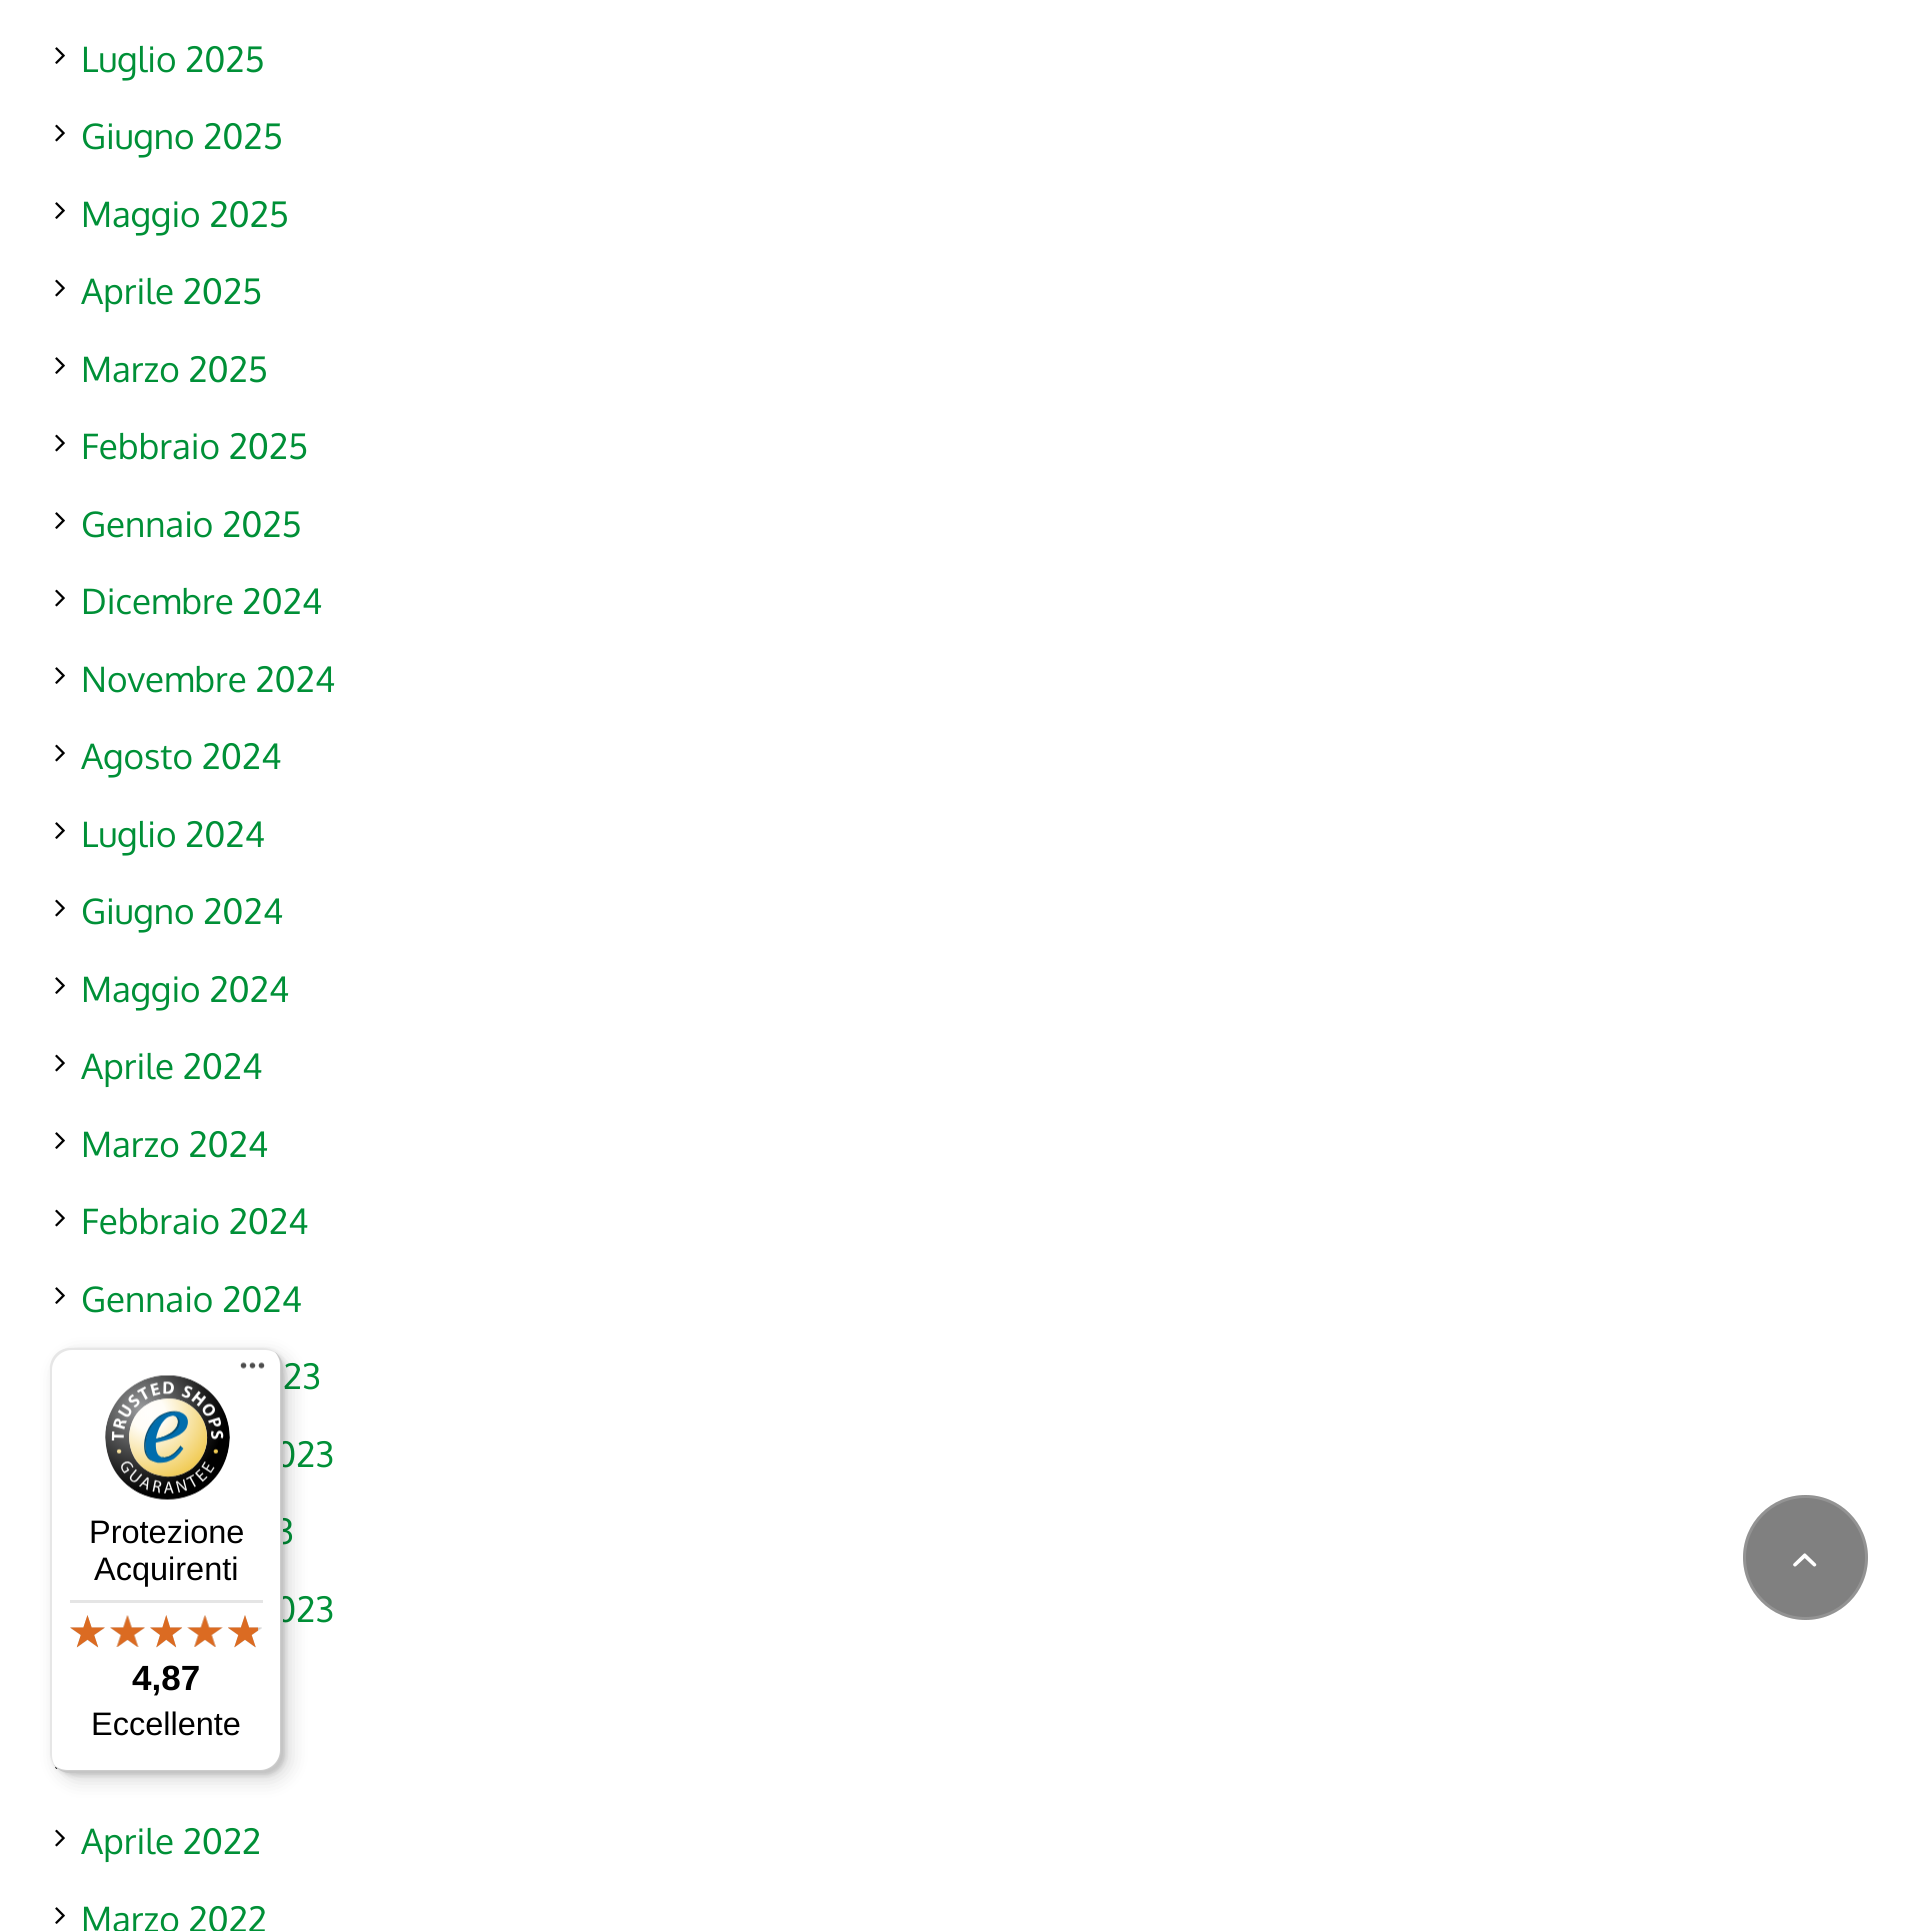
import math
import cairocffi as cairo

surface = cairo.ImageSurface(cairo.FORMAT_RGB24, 1917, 1931)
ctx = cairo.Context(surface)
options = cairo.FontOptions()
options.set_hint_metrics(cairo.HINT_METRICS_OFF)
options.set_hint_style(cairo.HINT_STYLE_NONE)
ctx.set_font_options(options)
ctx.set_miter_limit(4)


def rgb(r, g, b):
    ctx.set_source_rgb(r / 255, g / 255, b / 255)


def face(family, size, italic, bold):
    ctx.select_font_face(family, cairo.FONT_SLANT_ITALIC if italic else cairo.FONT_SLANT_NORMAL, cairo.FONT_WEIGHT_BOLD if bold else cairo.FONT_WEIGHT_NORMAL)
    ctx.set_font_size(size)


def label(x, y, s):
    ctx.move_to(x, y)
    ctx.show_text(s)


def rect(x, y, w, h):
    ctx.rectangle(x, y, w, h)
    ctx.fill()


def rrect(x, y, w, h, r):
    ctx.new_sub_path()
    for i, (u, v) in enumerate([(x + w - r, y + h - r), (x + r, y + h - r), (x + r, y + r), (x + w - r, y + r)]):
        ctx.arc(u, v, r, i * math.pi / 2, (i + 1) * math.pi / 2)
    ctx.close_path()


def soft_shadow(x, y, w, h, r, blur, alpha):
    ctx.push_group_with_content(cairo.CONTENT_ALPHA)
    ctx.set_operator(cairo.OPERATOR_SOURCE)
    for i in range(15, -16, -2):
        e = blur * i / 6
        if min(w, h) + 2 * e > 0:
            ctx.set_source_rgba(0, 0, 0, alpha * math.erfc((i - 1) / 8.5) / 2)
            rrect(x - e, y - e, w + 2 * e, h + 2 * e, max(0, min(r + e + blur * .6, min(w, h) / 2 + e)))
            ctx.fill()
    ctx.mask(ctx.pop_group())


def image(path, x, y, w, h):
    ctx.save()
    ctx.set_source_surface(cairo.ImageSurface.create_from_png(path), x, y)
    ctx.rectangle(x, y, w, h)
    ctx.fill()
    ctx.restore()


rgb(255, 255, 255)
ctx.paint()
image('image0.png', 55, 47, 10, 17)
face('Oxygen', 35, 0, 0)
rgb(0, 144, 55)
label(81, 72, 'Luglio 2025')
image('image1.png', 55, 124, 10, 18)
label(81, 149, 'Giugno 2025')
image('image0.png', 55, 202, 10, 17)
label(81, 227, 'Maggio 2025')
image('image1.png', 55, 279, 10, 18)
label(81, 304, 'Aprile 2025')
image('image0.png', 55, 357, 10, 17)
label(81, 382, 'Marzo 2025')
image('image1.png', 55, 434, 10, 18)
label(81, 459, 'Febbraio 2025')
image('image0.png', 55, 512, 10, 17)
label(81, 537, 'Gennaio 2025')
image('image1.png', 55, 589, 10, 18)
label(81, 614, 'Dicembre 2024')
image('image0.png', 55, 667, 10, 17)
label(81, 692, 'Novembre 2024')
image('image1.png', 55, 744, 10, 18)
label(81, 769, 'Agosto 2024')
image('image0.png', 55, 822, 10, 17)
label(81, 847, 'Luglio 2024')
image('image1.png', 55, 899, 10, 18)
label(81, 924, 'Giugno 2024')
image('image0.png', 55, 977, 10, 17)
label(81, 1002, 'Maggio 2024')
image('image1.png', 55, 1054, 10, 18)
label(81, 1079, 'Aprile 2024')
image('image0.png', 55, 1132, 10, 17)
label(81, 1157, 'Marzo 2024')
image('image1.png', 55, 1209, 10, 18)
label(81, 1234, 'Febbraio 2024')
image('image0.png', 55, 1287, 10, 17)
label(81, 1312, 'Gennaio 2024')
label(283, 1389, '23')
label(275, 1467, '023')
label(275, 1544, '3')
label(275, 1622, '023')
image('image2.png', 55, 1766, 3, 3)
image('image1.png', 55, 1829, 10, 18)
label(81, 1854, 'Aprile 2022')
image('image0.png', 55, 1907, 10, 17)
label(81, 1932, 'Marzo 2022')
rgb(128, 128, 128)
ctx.new_path()
ctx.arc(1805.5, 1557.5, 62.5, 0, 2 * math.pi)
ctx.fill()
ctx.arc(1805.5, 1557.5, 61, 0, 2 * math.pi)
ctx.set_source_rgba(1, 1, 1, 0.15)
ctx.set_line_width(3)
ctx.stroke()
image('image3.png', 1793, 1553, 24, 14)
rgb(0, 0, 0)
soft_shadow(58, 1355, 232, 425, 20, 10, 0.15)
soft_shadow(53, 1350, 232, 425, 20, 2.5, 0.15)
rgb(255, 255, 255)
rrect(50, 1348, 233, 425, 20)
ctx.fill()
ctx.set_source_rgba(0, 0, 0, 0.1)
ctx.new_path()
ctx.move_to(72, 1350)
ctx.line_to(265, 1350)
ctx.curve_to(270, 1350, 275, 1352, 278, 1355)
ctx.curve_to(275, 1351, 269, 1348, 263, 1348)
ctx.line_to(70, 1348)
ctx.curve_to(59, 1348, 50, 1357, 50, 1368)
ctx.line_to(50, 1753)
ctx.curve_to(50, 1759, 53, 1765, 57, 1768)
ctx.curve_to(54, 1765, 52, 1760, 52, 1755)
ctx.line_to(52, 1370)
ctx.curve_to(52, 1359, 61, 1350, 72, 1350)
ctx.close_path()
ctx.fill()
ctx.set_source_rgba(0, 0, 0, 0.2)
ctx.new_path()
ctx.move_to(53, 1764)
ctx.curve_to(57, 1769, 63, 1773, 70, 1773)
ctx.line_to(263, 1773)
ctx.curve_to(274, 1773, 283, 1764, 283, 1753)
ctx.line_to(283, 1368)
ctx.curve_to(283, 1362, 280, 1356, 275, 1352)
ctx.curve_to(278, 1356, 280, 1360, 280, 1365)
ctx.line_to(280, 1750)
ctx.curve_to(280, 1761, 271, 1770, 260, 1770)
ctx.line_to(68, 1770)
ctx.curve_to(62, 1770, 57, 1768, 53, 1764)
ctx.close_path()
ctx.fill()
ctx.set_source_rgba(0.196, 0.196, 0.196, 0.2)
ctx.new_path()
ctx.move_to(55, 1766)
ctx.curve_to(58, 1770, 64, 1773, 70, 1773)
ctx.line_to(263, 1773)
ctx.curve_to(274, 1773, 283, 1764, 283, 1753)
ctx.line_to(283, 1368)
ctx.curve_to(283, 1362, 280, 1356, 276, 1353)
ctx.curve_to(279, 1356, 281, 1361, 281, 1366)
ctx.line_to(281, 1751)
ctx.curve_to(281, 1762, 272, 1771, 261, 1771)
ctx.line_to(68, 1771)
ctx.curve_to(63, 1771, 58, 1769, 55, 1766)
ctx.close_path()
ctx.fill()
ctx.set_source_rgba(1, 1, 1, 0.3)
ctx.new_path()
ctx.move_to(52, 1761)
ctx.curve_to(55, 1768, 62, 1773, 70, 1773)
ctx.line_to(263, 1773)
ctx.curve_to(274, 1773, 283, 1764, 283, 1753)
ctx.line_to(283, 1368)
ctx.curve_to(283, 1362, 280, 1356, 276, 1353)
ctx.curve_to(279, 1356, 281, 1361, 281, 1366)
ctx.line_to(281, 1751)
ctx.curve_to(281, 1762, 272, 1771, 261, 1771)
ctx.line_to(69, 1771)
ctx.curve_to(62, 1771, 55, 1767, 52, 1761)
ctx.close_path()
ctx.fill()
image('image4.png', 240, 1362, 25, 7)
image('image5.png', 105, 1375, 125, 125)
face('Liberation Sans', 32.5, 0, 0)
rgb(0, 0, 0)
label(89, 1543, 'Protezione')
label(94, 1580, 'Acquirenti')
rgb(229, 229, 229)
rect(70, 1600, 193, 3)
image('image6.png', 70, 1615, 35, 33)
image('image7.png', 110, 1615, 35, 32)
image('image8.png', 150, 1615, 32, 33)
image('image9.png', 187, 1615, 36, 32)
image('image10.png', 228, 1615, 34, 33)
image('image11.png', 70, 1615, 35, 33)
image('image12.png', 110, 1615, 35, 32)
image('image13.png', 150, 1615, 33, 33)
image('image14.png', 187, 1615, 36, 32)
image('image15.png', 228, 1615, 30, 33)
face('Liberation Sans', 35, 0, 1)
rgb(0, 0, 0)
label(132, 1690, '4,87')
face('Liberation Sans', 32.5, 0, 0)
label(91, 1735, 'Eccellente')
surface.write_to_png('render.png')
